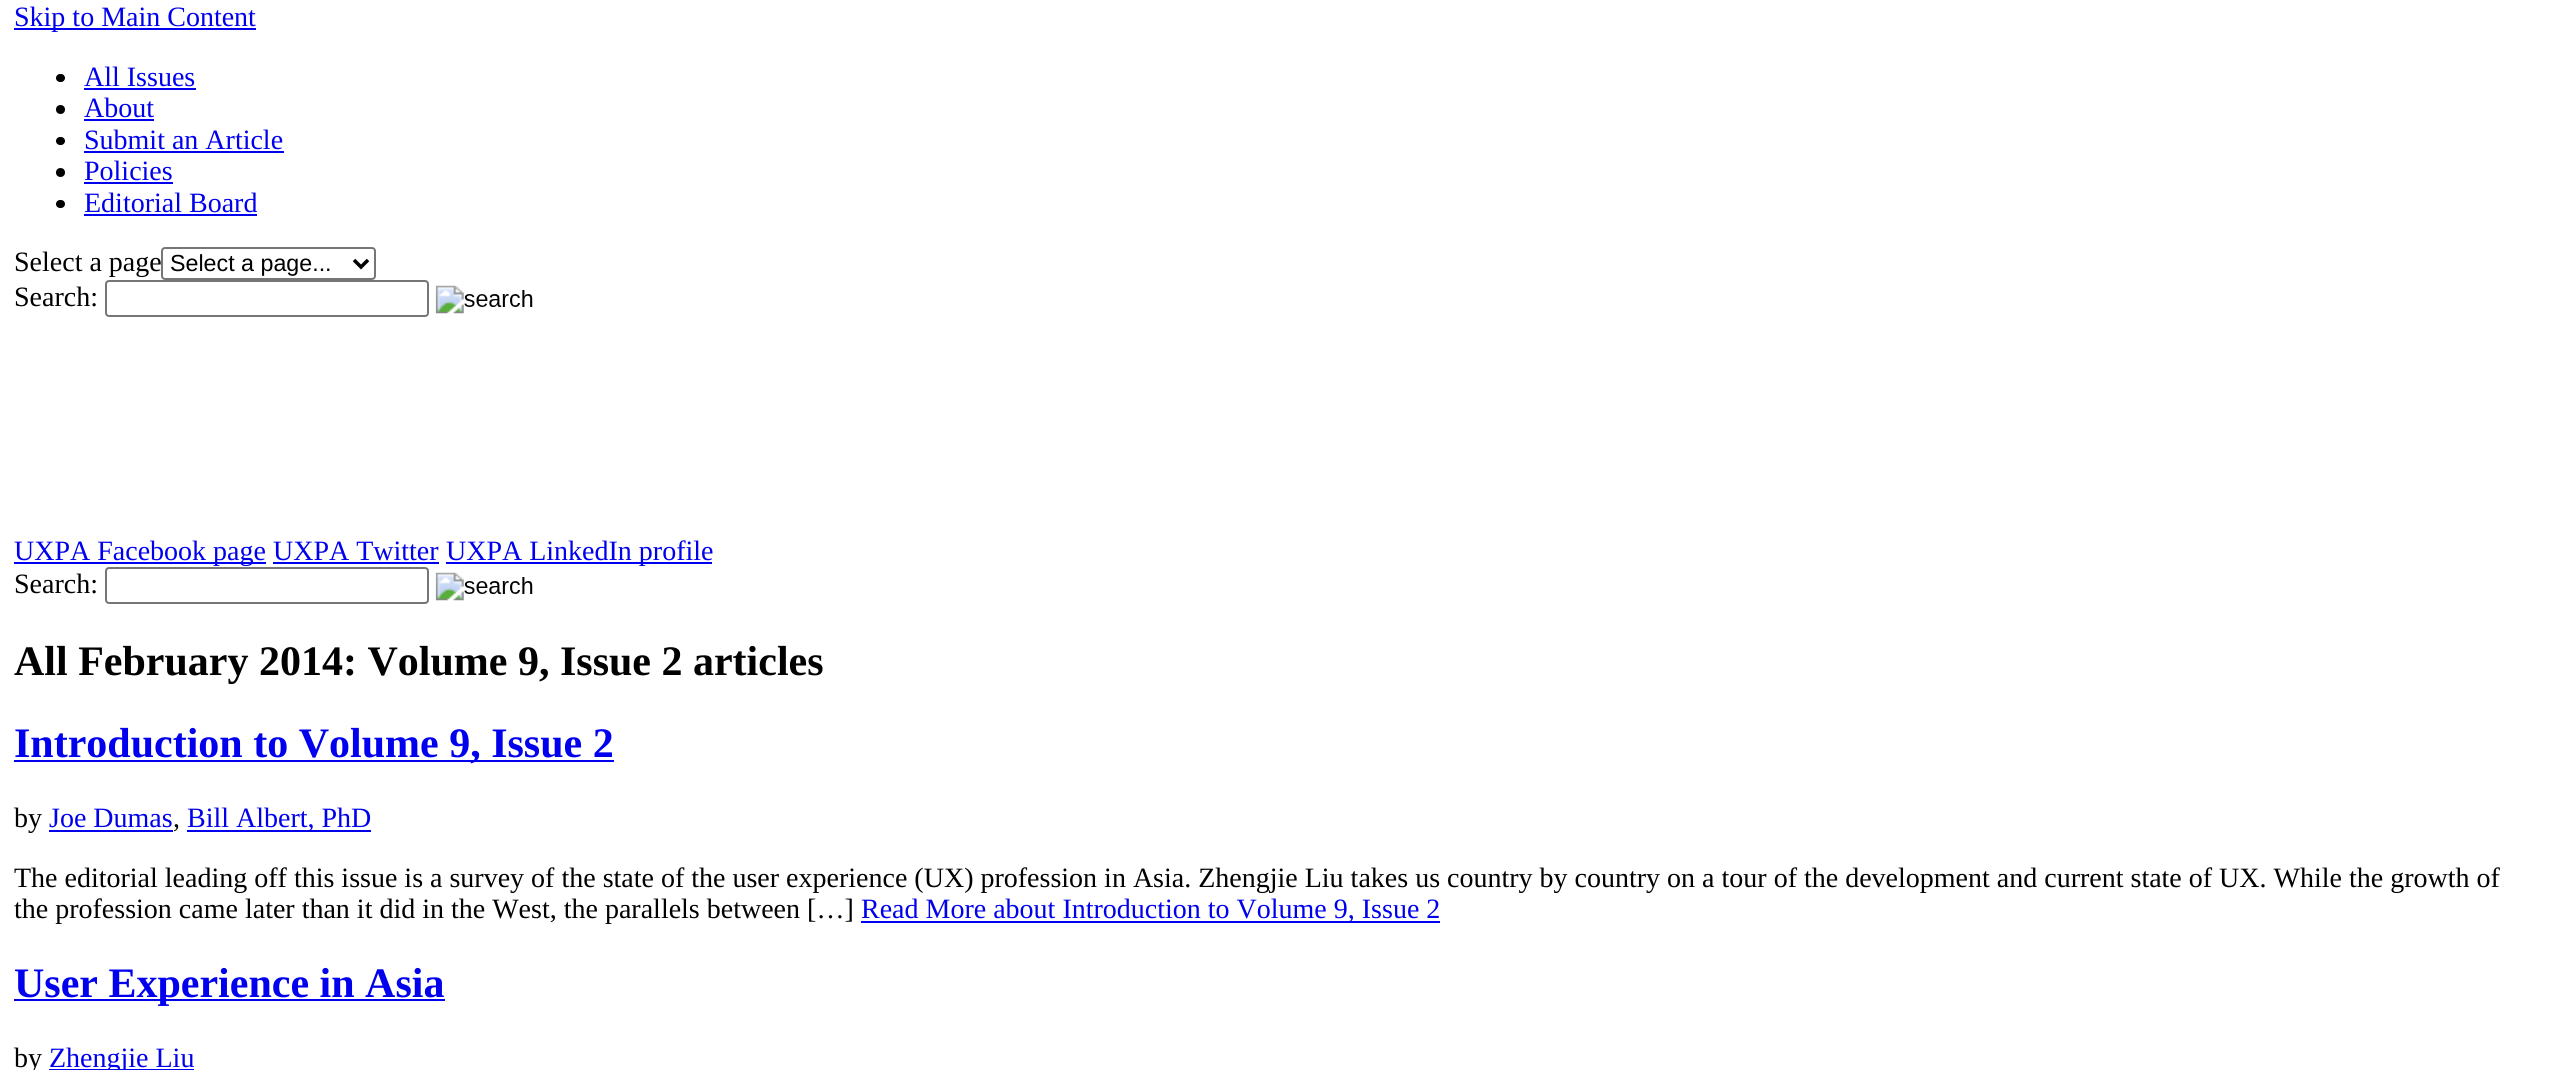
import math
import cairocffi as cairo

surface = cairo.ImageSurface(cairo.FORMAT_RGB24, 2555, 1070)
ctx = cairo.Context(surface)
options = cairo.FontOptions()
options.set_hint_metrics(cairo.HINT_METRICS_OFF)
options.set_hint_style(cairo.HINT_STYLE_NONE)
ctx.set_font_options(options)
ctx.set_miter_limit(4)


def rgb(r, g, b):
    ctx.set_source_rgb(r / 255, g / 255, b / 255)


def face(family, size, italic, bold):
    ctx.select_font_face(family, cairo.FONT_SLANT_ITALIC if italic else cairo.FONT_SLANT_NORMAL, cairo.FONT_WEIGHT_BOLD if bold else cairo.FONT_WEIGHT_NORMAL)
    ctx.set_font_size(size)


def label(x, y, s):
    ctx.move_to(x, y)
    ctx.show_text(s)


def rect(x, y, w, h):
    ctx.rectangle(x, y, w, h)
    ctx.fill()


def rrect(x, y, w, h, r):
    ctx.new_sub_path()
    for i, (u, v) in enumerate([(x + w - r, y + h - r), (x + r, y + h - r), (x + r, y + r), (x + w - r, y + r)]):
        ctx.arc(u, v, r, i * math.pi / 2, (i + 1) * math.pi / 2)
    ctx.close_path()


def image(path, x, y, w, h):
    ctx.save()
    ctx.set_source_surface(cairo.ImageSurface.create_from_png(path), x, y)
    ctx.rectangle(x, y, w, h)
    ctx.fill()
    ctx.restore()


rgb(255, 255, 255)
ctx.paint()
rgb(0, 0, 238)
rect(14, 28, 242, 2)
face('Liberation Serif', 28, 0, 0)
label(14, 26, 'Skip to Main Content')
rgb(0, 0, 0)
rrect(56, 74, 9, 8, 4)
ctx.fill()
rgb(0, 0, 238)
label(84, 86, 'All Issues')
rect(84, 88, 112, 2)
rgb(0, 0, 0)
ctx.new_path()
ctx.arc(60.5, 109.5, 4.5, 0, 2 * math.pi)
ctx.fill()
rgb(0, 0, 238)
label(84, 117, 'About')
rect(84, 119, 70, 2)
rgb(0, 0, 0)
rrect(56, 137, 9, 8, 4)
ctx.fill()
rgb(0, 0, 238)
label(84, 149, 'Submit an Article')
rect(84, 151, 200, 2)
rgb(0, 0, 0)
ctx.new_path()
ctx.arc(60.5, 172.5, 4.5, 0, 2 * math.pi)
ctx.fill()
rgb(0, 0, 238)
label(84, 180, 'Policies')
rect(84, 182, 89, 2)
rgb(0, 0, 0)
rrect(56, 200, 9, 8, 4)
ctx.fill()
rgb(0, 0, 238)
label(84, 212, 'Editorial Board')
rect(84, 214, 173, 2)
rgb(0, 0, 0)
label(14, 271, 'Select a page')
rrect(162, 248, 213, 31, 3)
rgb(118, 118, 118)
ctx.stroke()
ctx.new_path()
ctx.move_to(354, 260)
ctx.line_to(361, 267)
ctx.line_to(368, 260)
rgb(0, 0, 0)
ctx.set_line_width(3.5)
ctx.stroke()
face('Liberation Sans', 23.25, 0, 0)
label(170, 271, 'Select a page...')
face('Liberation Serif', 28, 0, 0)
label(14, 306, 'Search:')
rrect(106, 281, 322, 35, 3)
rgb(118, 118, 118)
ctx.set_line_width(2)
ctx.stroke()
image('image0.png', 435, 285, 98, 29)
rgb(0, 0, 238)
rect(14, 562, 252, 2)
label(14, 560, 'UXPA Facebook page UXPA Twitter')
rect(446, 562, 266, 2)
label(446, 560, 'UXPA LinkedIn profile')
rect(273, 562, 166, 2)
rgb(0, 0, 0)
label(14, 593, 'Search:')
rrect(106, 568, 322, 35, 3)
rgb(118, 118, 118)
ctx.stroke()
image('image0.png', 435, 572, 98, 29)
face('Liberation Serif', 42, 0, 1)
rgb(0, 0, 0)
label(14, 675, 'All February 2014: Volume 9, Issue 2 articles')
rgb(0, 0, 238)
rect(14, 760, 600, 2)
label(14, 757, 'Introduction to Volume 9, Issue 2')
face('Liberation Serif', 28, 0, 0)
rgb(0, 0, 0)
label(14, 827, 'by')
rgb(0, 0, 238)
label(49, 827, 'Joe Dumas')
rect(49, 830, 124, 2)
rgb(0, 0, 0)
label(173, 827, ',')
rgb(0, 0, 238)
rect(187, 830, 184, 2)
label(187, 827, 'Bill Albert, PhD')
rgb(0, 0, 0)
label(14, 887, 'The editorial leading off this issue is a survey of the state of the user experience (UX) profession in Asia. Zhengjie Liu takes us country by country on a tour of the development and current state of UX. While the growth of')
label(14, 918, 'the profession came later than it did in the West, the parallels between […]')
rgb(0, 0, 238)
rect(861, 921, 579, 2)
label(861, 918, 'Read More about Introduction to Volume 9, Issue 2')
rect(14, 999, 431, 2)
face('Liberation Serif', 42, 0, 1)
label(14, 997, 'User Experience in Asia')
face('Liberation Serif', 28, 0, 0)
rgb(0, 0, 0)
label(14, 1067, 'by')
rgb(0, 0, 238)
rect(49, 1069, 145, 1)
label(49, 1067, 'Zhengjie Liu')
surface.write_to_png('render.png')
